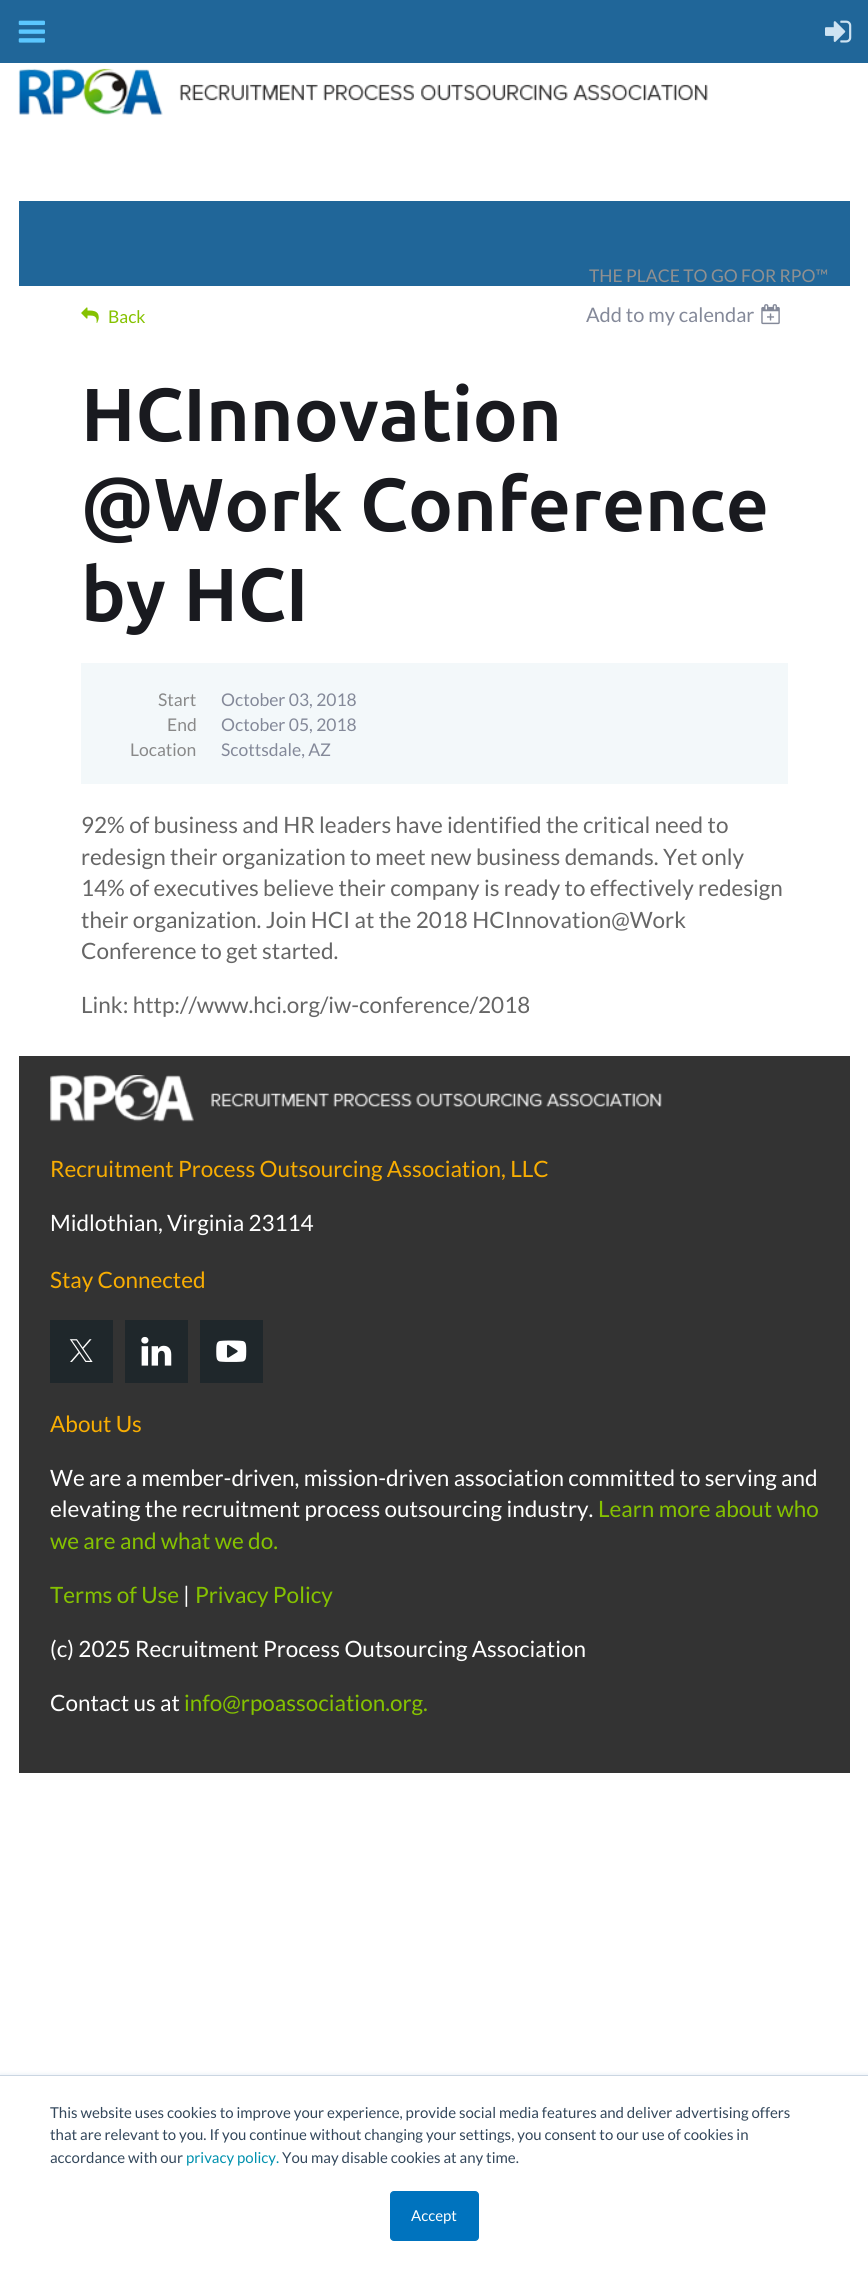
import math
import cairocffi as cairo

surface = cairo.ImageSurface(cairo.FORMAT_RGB24, 868, 2273)
ctx = cairo.Context(surface)
options = cairo.FontOptions()
options.set_hint_metrics(cairo.HINT_METRICS_OFF)
options.set_hint_style(cairo.HINT_STYLE_NONE)
ctx.set_font_options(options)
ctx.set_miter_limit(4)


def rgb(r, g, b):
    ctx.set_source_rgb(r / 255, g / 255, b / 255)


def face(family, size, italic, bold):
    ctx.select_font_face(family, cairo.FONT_SLANT_ITALIC if italic else cairo.FONT_SLANT_NORMAL, cairo.FONT_WEIGHT_BOLD if bold else cairo.FONT_WEIGHT_NORMAL)
    ctx.set_font_size(size)


def label(x, y, s):
    ctx.move_to(x, y)
    ctx.show_text(s)


def rect(x, y, w, h):
    ctx.rectangle(x, y, w, h)
    ctx.fill()


def rrect(x, y, w, h, r):
    ctx.new_sub_path()
    for i, (u, v) in enumerate([(x + w - r, y + h - r), (x + r, y + h - r), (x + r, y + r), (x + w - r, y + r)]):
        ctx.arc(u, v, r, i * math.pi / 2, (i + 1) * math.pi / 2)
    ctx.close_path()


def soft_shadow(x, y, w, h, r, blur, alpha):
    ctx.push_group_with_content(cairo.CONTENT_ALPHA)
    ctx.set_operator(cairo.OPERATOR_SOURCE)
    for i in range(15, -16, -2):
        e = blur * i / 6
        if min(w, h) + 2 * e > 0:
            ctx.set_source_rgba(0, 0, 0, alpha * math.erfc((i - 1) / 8.5) / 2)
            rrect(x - e, y - e, w + 2 * e, h + 2 * e, max(0, min(r + e + blur * .6, min(w, h) / 2 + e)))
            ctx.fill()
    ctx.mask(ctx.pop_group())


def image(path, x, y, w, h):
    ctx.save()
    ctx.set_source_surface(cairo.ImageSurface.create_from_png(path), x, y)
    ctx.rectangle(x, y, w, h)
    ctx.fill()
    ctx.restore()


rgb(255, 255, 255)
ctx.paint()
rgb(32, 102, 153)
rect(0, 0, 868, 63)
image('image0.png', 18, 20, 27, 23)
image('image1.png', 825, 20, 27, 23)
image('image2.png', 18, 68, 690, 47)
rect(19, 201, 831, 85)
face('Lato', 17.5, 0, 0)
rgb(144, 144, 144)
label(589, 282, 'THE PLACE TO GO FOR RPO™')
image('image3.png', 81, 307, 18, 16)
rgb(133, 194, 0)
label(108, 323, 'Back')
face('Lato', 20, 0, 0)
rgb(132, 137, 153)
label(586, 322, 'Add to my calendar')
image('image4.png', 761, 304, 19, 21)
face('Ubuntu', 75, 0, 1)
rgb(25, 26, 31)
label(81, 441, 'HCInnovation')
label(81, 531, '@Work Conference')
label(81, 621, 'by HCI')
rgb(243, 248, 250)
rect(81, 663, 707, 121)
face('Lato', 17.5, 0, 0)
rgb(137, 137, 137)
label(158, 706, 'Start')
rgb(132, 137, 153)
label(221, 706, 'October 03, 2018')
rgb(137, 137, 137)
label(167, 731, 'End')
rgb(132, 137, 153)
label(221, 731, 'October 05, 2018')
rgb(137, 137, 137)
label(130, 756, 'Location')
rgb(132, 137, 153)
label(221, 756, 'Scottsdale, AZ')
face('Lato', 22.5, 0, 0)
rgb(102, 102, 102)
label(81, 833, '92% of business and HR leaders have identified the critical need to')
label(81, 865, 'redesign their organization to meet new business demands. Yet only')
label(81, 896, '14% of executives believe their company is ready to effectively redesign')
label(81, 928, 'their organization. Join HCI at the 2018 HCInnovation@Work')
label(81, 959, 'Conference to get started.')
label(81, 1013, 'Link: http://www.hci.org/iw-conference/2018')
rgb(51, 51, 51)
rect(19, 1056, 831, 717)
image('image5.png', 50, 1075, 612, 47)
rgb(248, 173, 2)
label(50, 1177, 'Recruitment Process Outsourcing Association, LLC')
rgb(255, 255, 255)
label(50, 1231, 'Midlothian, Virginia 23114')
rgb(248, 173, 2)
label(50, 1288, 'Stay Connected')
rgb(31, 39, 43)
rect(50, 1320, 63, 63)
image('image6.png', 69, 1339, 24, 23)
rect(125, 1320, 63, 63)
image('image7.png', 141, 1336, 31, 30)
rect(200, 1320, 63, 63)
image('image8.png', 216, 1340, 31, 22)
rgb(248, 173, 2)
label(50, 1432, 'About Us')
rgb(255, 255, 255)
label(50, 1486, 'We are a member-driven, mission-driven association committed to serving and')
label(50, 1517, 'elevating the recruitment process outsourcing industry.')
rgb(133, 194, 0)
label(598, 1517, 'Learn more about who')
label(50, 1549, 'we are and what we do.')
label(50, 1603, 'Terms of Use')
rgb(255, 255, 255)
label(183, 1603, '|')
rgb(133, 194, 0)
label(195, 1603, 'Privacy Policy')
rgb(255, 255, 255)
label(50, 1657, '(c) 2025 Recruitment Process Outsourcing Association')
label(50, 1711, 'Contact us at')
rgb(133, 194, 0)
label(184, 1711, 'info@rpoassociation.org.')
ctx.save()
ctx.rectangle(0, 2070, 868, 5)
ctx.clip()
rgb(234, 240, 246)
soft_shadow(0, 2074, 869, 199, 0, 2, 1)
ctx.restore()
rgb(203, 214, 226)
rect(0, 2075, 868, 1)
face('Lato', 15, 0, 0)
rgb(51, 71, 91)
label(50, 2118, 'This website uses cookies to improve your experience, provide social media features and deliver advertising offers')
label(50, 2140, 'that are relevant to you. If you continue without changing your settings, you consent to our use of cookies in')
label(50, 2163, 'accordance with our')
rgb(0, 145, 174)
label(186, 2163, 'privacy policy.')
rgb(51, 71, 91)
label(282, 2163, 'You may disable cookies at any time.')
rgb(0, 115, 190)
rrect(390.5, 2191.5, 88, 49, 3.5)
ctx.fill_preserve()
ctx.set_line_width(1)
ctx.stroke()
rgb(255, 255, 255)
label(411, 2221, 'Accept')
surface.write_to_png('render.png')
